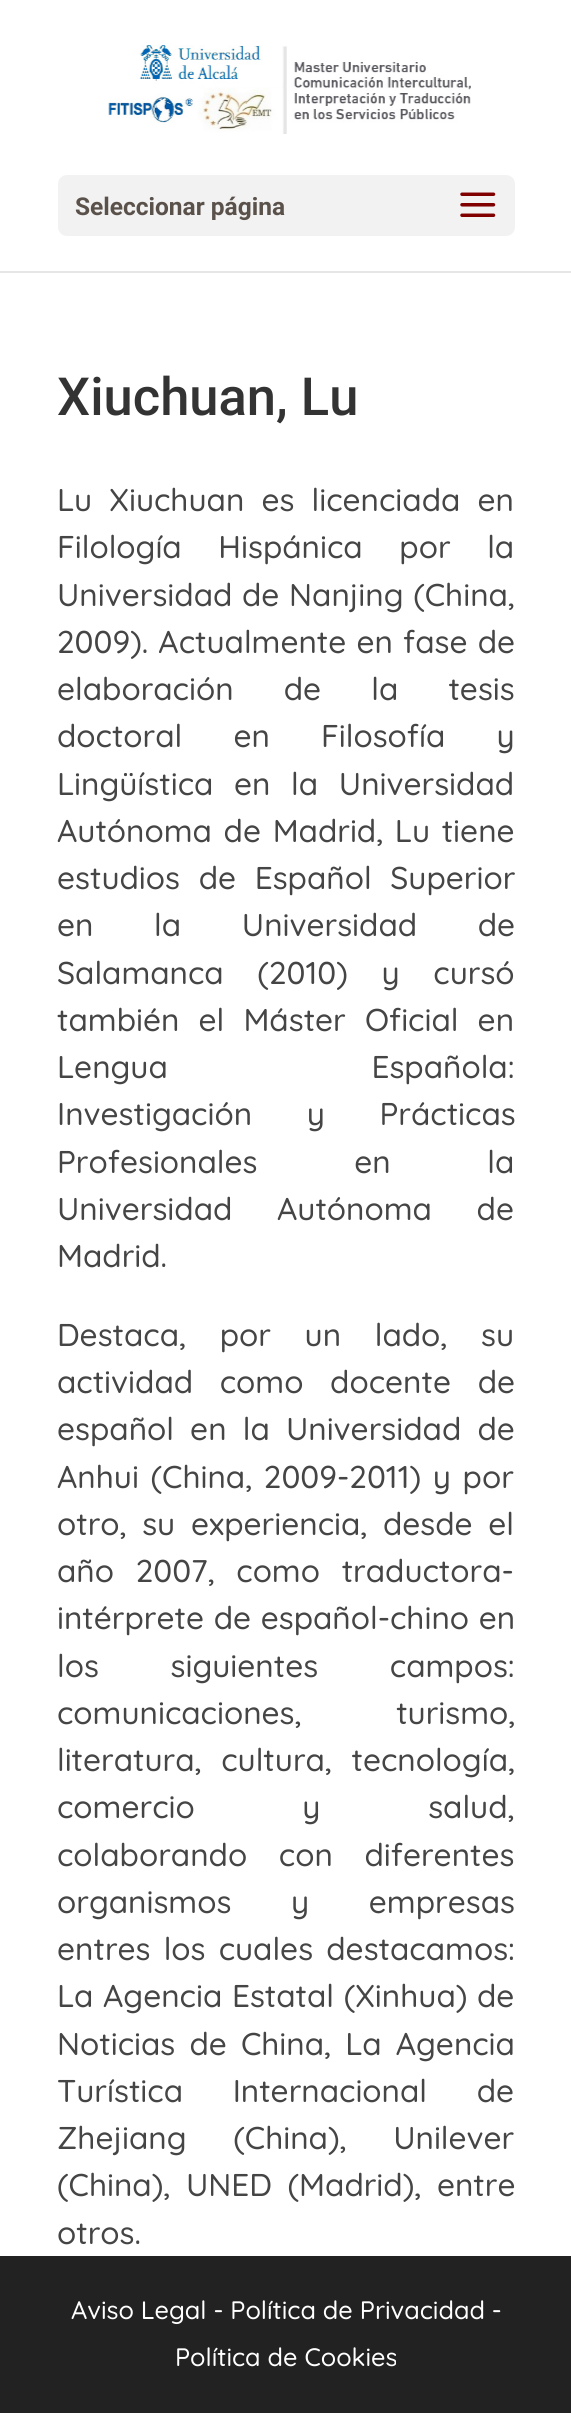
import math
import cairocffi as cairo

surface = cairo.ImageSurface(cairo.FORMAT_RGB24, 571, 2413)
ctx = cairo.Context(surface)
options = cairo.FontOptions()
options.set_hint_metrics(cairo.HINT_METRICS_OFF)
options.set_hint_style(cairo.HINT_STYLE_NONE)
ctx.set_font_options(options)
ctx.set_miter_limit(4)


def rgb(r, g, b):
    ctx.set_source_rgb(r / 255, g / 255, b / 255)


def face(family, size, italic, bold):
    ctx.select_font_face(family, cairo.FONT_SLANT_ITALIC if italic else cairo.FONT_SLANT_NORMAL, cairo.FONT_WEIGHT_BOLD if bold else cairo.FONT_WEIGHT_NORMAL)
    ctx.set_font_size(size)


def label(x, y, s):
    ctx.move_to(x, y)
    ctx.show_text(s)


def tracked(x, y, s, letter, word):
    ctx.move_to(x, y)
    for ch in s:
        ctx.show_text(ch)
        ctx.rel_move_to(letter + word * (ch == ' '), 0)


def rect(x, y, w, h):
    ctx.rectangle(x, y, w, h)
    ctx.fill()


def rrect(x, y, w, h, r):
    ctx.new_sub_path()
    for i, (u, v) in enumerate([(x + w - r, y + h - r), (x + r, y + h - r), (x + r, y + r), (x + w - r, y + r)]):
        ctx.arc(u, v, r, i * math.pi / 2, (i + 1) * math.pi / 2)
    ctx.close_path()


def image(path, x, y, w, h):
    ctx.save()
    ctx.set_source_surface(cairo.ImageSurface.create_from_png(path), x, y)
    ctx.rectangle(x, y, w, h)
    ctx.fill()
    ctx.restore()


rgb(255, 255, 255)
ctx.paint()
rgb(230, 230, 230)
rect(0, 271, 571, 2)
image('image0.png', 108, 45, 363, 89)
rgb(242, 242, 242)
rrect(58, 175, 457, 61, 9)
ctx.fill()
face('Roboto', 24.5, 0, 1)
rgb(90, 81, 75)
label(75, 215, 'Seleccionar página')
image('image1.png', 460, 192, 36, 25)
face('Roboto Medium', 52.5, 0, 0)
rgb(51, 51, 51)
label(57, 415, 'Xiuchuan, Lu')
face('Quicksand Medium', 31.5, 0, 0)
rgb(69, 69, 69)
tracked(57, 511, 'Lu Xiuchuan es licenciada en', 0, 8.5)
tracked(57, 558, 'Filología Hispánica por la', 0, 28)
tracked(57, 606, 'Universidad de Nanjing (China,', 0, 1)
tracked(57, 653, '2009). Actualmente en fase de', 0, 1.5)
tracked(57, 700, 'elaboración de la tesis', 0, 41.5)
tracked(57, 747, 'doctoral en Filosofía y', 0, 42.5)
tracked(57, 795, 'Lingüística en la Universidad', 0, 12)
tracked(57, 842, 'Autónoma de Madrid, Lu tiene', 0, 3)
tracked(57, 889, 'estudios de Español Superior', 0, 10)
tracked(57, 936, 'en la Universidad de', 0, 52)
tracked(57, 984, 'Salamanca (2010) y cursó', 0, 25)
tracked(57, 1031, 'también el Máster Oficial en', 0, 10.5)
tracked(57, 1078, 'Lengua Española:', 0, 195)
tracked(57, 1125, 'Investigación y Prácticas', 0, 46)
tracked(57, 1173, 'Profesionales en la', 0, 88)
tracked(57, 1220, 'Universidad Autónoma de', 0, 36)
label(57, 1267, 'Madrid.')
tracked(57, 1346, 'Destaca, por un lado, su', 0, 25)
tracked(57, 1393, 'actividad como docente de', 0, 18)
tracked(57, 1440, 'español en la Universidad de', 0, 7.5)
tracked(57, 1488, 'Anhui (China, 2009-2011) y por', 0, 3)
tracked(57, 1535, 'otro, su experiencia, desde el', 0, 7)
tracked(57, 1582, 'año 2007, como traductora-', 0, 13)
tracked(57, 1629, 'intérprete de español-chino en', 0, 1)
tracked(57, 1677, 'los siguientes campos:', 0, 63)
tracked(57, 1724, 'comunicaciones, turismo,', 0, 86)
tracked(57, 1771, 'literatura, cultura, tecnología,', 0, 11)
tracked(57, 1818, 'comercio y salud,', 0, 99)
tracked(57, 1866, 'colaborando con diferentes', 0, 23)
tracked(57, 1913, 'organismos y empresas', 0, 51)
tracked(57, 1960, 'entres los cuales destacamos:', 0, 4.5)
tracked(57, 2007, 'La Agencia Estatal (Xinhua) de', 0, 1)
tracked(57, 2055, 'Noticias de China, La Agencia', 0, 5.5)
tracked(57, 2102, 'Turística Internacional de', 0, 41)
tracked(57, 2149, 'Zhejiang (China), Unilever', 0, 38)
tracked(57, 2196, '(China), UNED (Madrid), entre', 0, 7)
label(57, 2244, 'otros.')
rgb(34, 34, 34)
rect(0, 2256, 571, 157)
face('Quicksand Medium', 25.25, 0, 0)
rgb(255, 255, 255)
label(71, 2319, 'Aviso Legal - Política de Privacidad -')
label(175, 2366, 'Política de Cookies')
surface.write_to_png('render.png')
